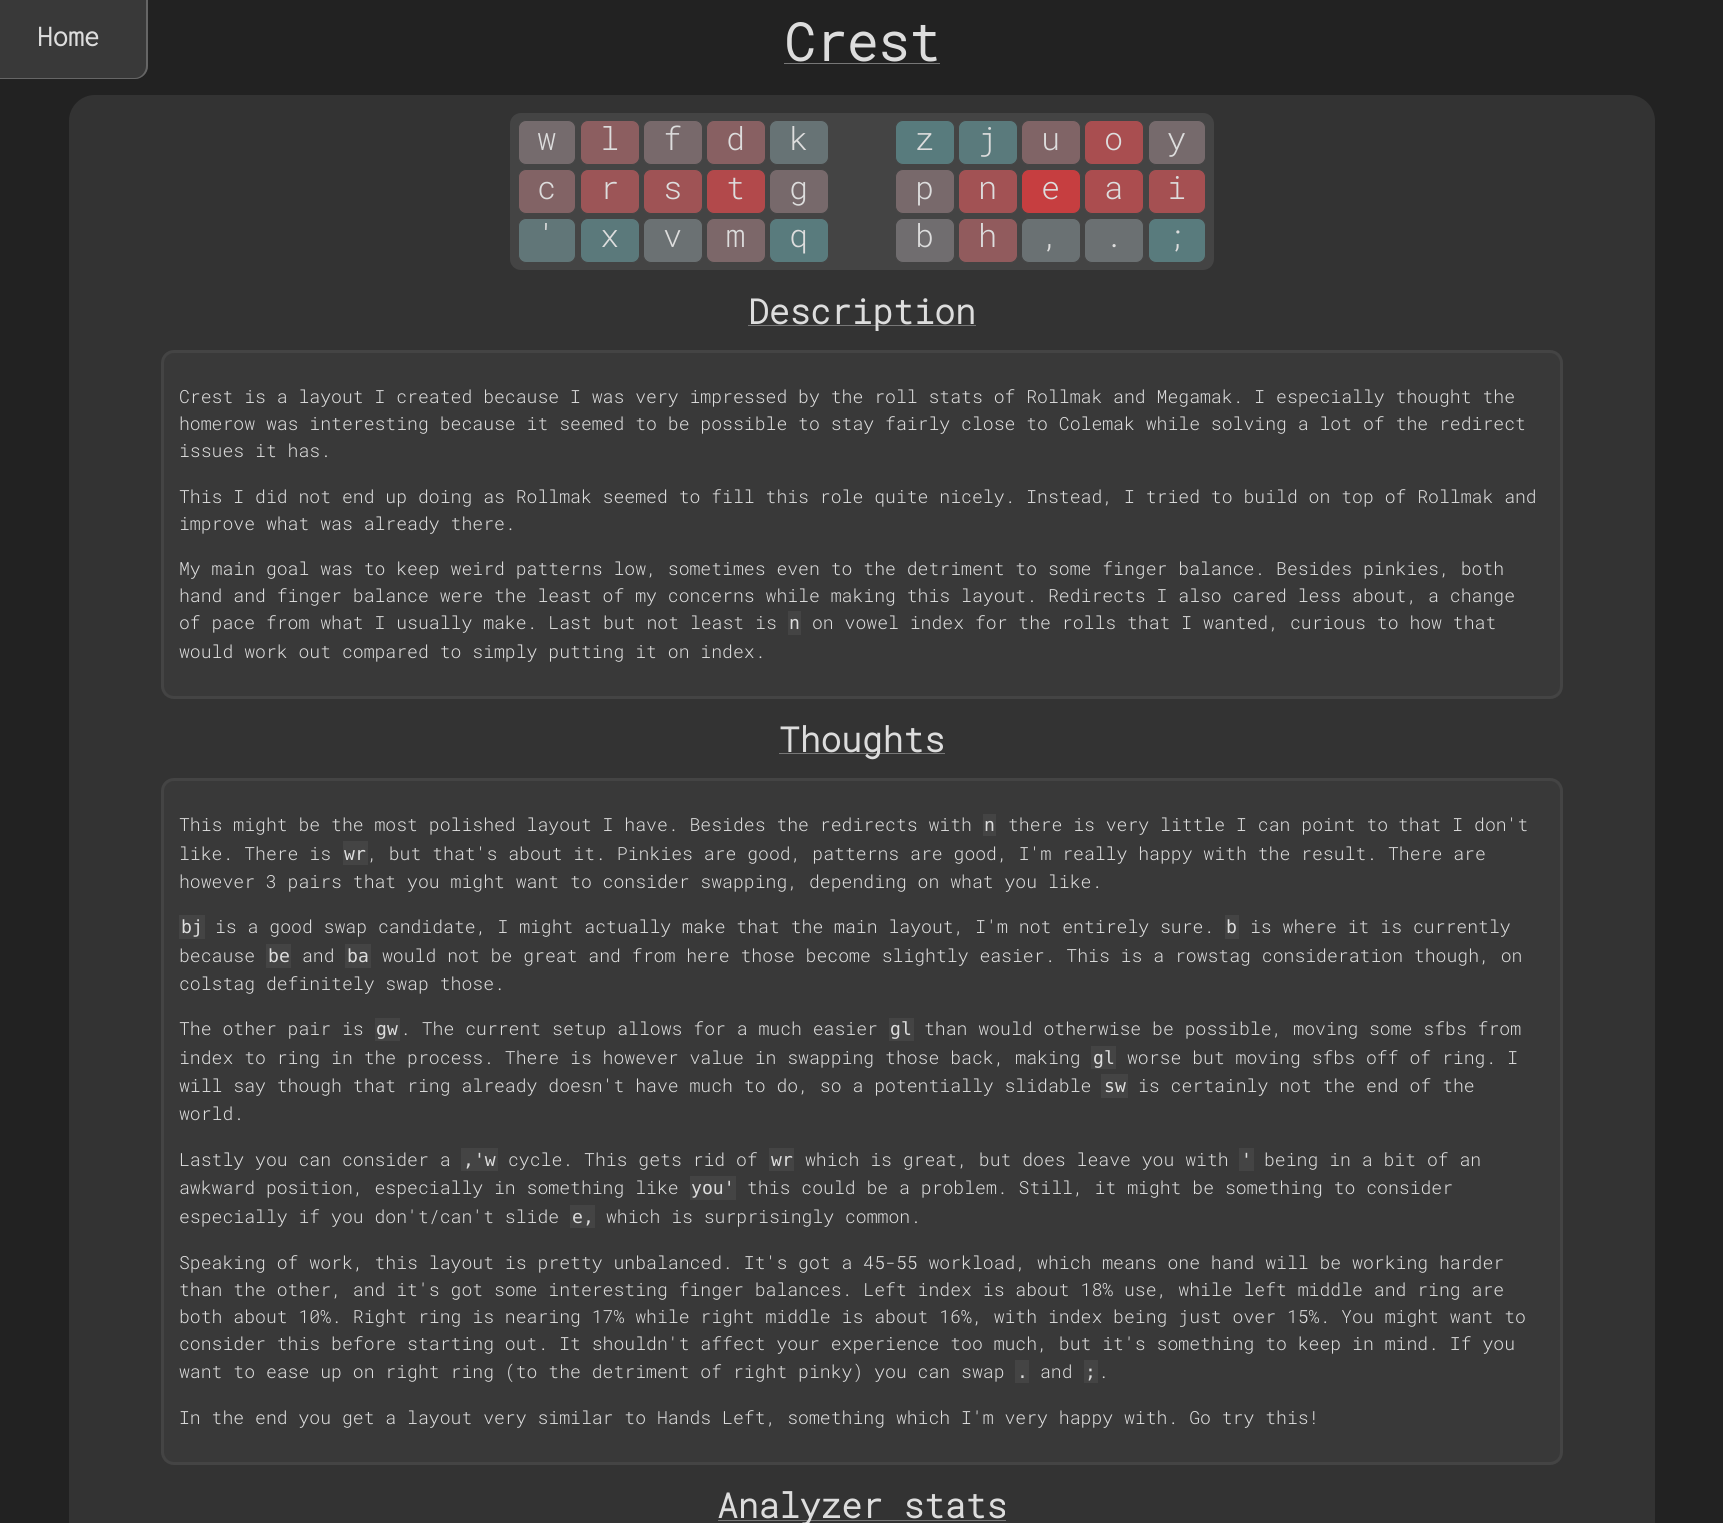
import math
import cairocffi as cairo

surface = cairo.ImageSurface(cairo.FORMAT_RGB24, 1723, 1523)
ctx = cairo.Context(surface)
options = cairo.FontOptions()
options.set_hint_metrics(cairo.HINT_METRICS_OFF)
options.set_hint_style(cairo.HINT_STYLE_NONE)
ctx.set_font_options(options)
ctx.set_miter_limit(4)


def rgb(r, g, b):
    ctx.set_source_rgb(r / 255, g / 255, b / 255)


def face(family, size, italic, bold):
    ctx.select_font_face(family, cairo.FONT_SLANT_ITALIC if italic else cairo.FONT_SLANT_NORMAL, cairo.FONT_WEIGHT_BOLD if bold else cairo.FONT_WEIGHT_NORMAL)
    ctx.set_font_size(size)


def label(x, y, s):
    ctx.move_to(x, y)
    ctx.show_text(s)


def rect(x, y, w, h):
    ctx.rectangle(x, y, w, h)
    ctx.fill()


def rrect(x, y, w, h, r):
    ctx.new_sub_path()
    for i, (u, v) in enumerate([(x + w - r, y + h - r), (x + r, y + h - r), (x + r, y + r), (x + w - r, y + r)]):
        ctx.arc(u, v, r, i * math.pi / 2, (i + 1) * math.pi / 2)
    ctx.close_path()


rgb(34, 34, 34)
ctx.paint()
rgb(57, 57, 57)
ctx.new_path()
ctx.move_to(0, 0)
ctx.line_to(148, 0)
ctx.line_to(148, 66)
ctx.curve_to(148, 73, 142, 79, 135, 79)
ctx.line_to(0, 79)
ctx.close_path()
ctx.fill()
rgb(102, 102, 102)
ctx.set_fill_rule(cairo.FILL_RULE_EVEN_ODD)
ctx.new_path()
ctx.move_to(0, 0)
ctx.line_to(148, 0)
ctx.line_to(148, 66)
ctx.curve_to(148, 73, 142, 79, 135, 79)
ctx.line_to(0, 79)
ctx.close_path()
ctx.move_to(0, 0)
ctx.line_to(146, 0)
ctx.line_to(146, 66)
ctx.curve_to(146, 72, 141, 78, 135, 78)
ctx.line_to(0, 78)
ctx.close_path()
ctx.fill()
face('Roboto Mono', 26, 0, 1)
rgb(221, 221, 221)
label(37, 46, 'Home')
face('Roboto Mono', 52, 0, 1)
label(784, 61, 'Crest')
rgb(119, 119, 119)
rect(784, 63, 156, 1)
rgb(51, 51, 51)
rrect(69, 95, 1586, 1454, 26)
ctx.fill()
rgb(68, 68, 68)
rrect(510, 113, 704, 157, 11)
ctx.fill()
rgb(117, 107, 109)
rrect(518.5, 120.5, 57, 44, 7.5)
ctx.fill_preserve()
rgb(68, 68, 68)
ctx.set_line_width(1)
ctx.stroke()
face('Roboto Mono Light', 32, 0, 0)
rgb(221, 221, 221)
label(537, 150, 'w')
rgb(140, 94, 96)
rrect(580.5, 120.5, 59, 44, 7.5)
ctx.fill_preserve()
rgb(68, 68, 68)
ctx.stroke()
rgb(221, 221, 221)
label(600, 150, 'l')
rgb(120, 105, 107)
rrect(643.5, 120.5, 59, 44, 7.5)
ctx.fill_preserve()
rgb(68, 68, 68)
ctx.stroke()
rgb(221, 221, 221)
label(663, 150, 'f')
rgb(136, 96, 98)
rrect(706.5, 120.5, 59, 44, 7.5)
ctx.fill_preserve()
rgb(68, 68, 68)
ctx.stroke()
rgb(221, 221, 221)
label(726, 150, 'd')
rgb(103, 115, 117)
rrect(769.5, 120.5, 59, 44, 7.5)
ctx.fill_preserve()
rgb(68, 68, 68)
ctx.stroke()
rgb(221, 221, 221)
label(789, 150, 'k')
rgb(88, 123, 125)
rrect(895.5, 120.5, 59, 44, 7.5)
ctx.fill_preserve()
rgb(68, 68, 68)
ctx.stroke()
rgb(221, 221, 221)
label(915, 150, 'z')
rgb(90, 122, 124)
rrect(958.5, 120.5, 59, 44, 7.5)
ctx.fill_preserve()
rgb(68, 68, 68)
ctx.stroke()
rgb(221, 221, 221)
label(978, 150, 'j')
rgb(128, 100, 102)
rrect(1021.5, 120.5, 59, 44, 7.5)
ctx.fill_preserve()
rgb(68, 68, 68)
ctx.stroke()
rgb(221, 221, 221)
label(1041, 150, 'u')
rgb(169, 78, 80)
rrect(1084.5, 120.5, 59, 44, 7.5)
ctx.fill_preserve()
rgb(68, 68, 68)
ctx.stroke()
rgb(221, 221, 221)
label(1104, 150, 'o')
rgb(118, 106, 108)
rrect(1148.5, 120.5, 57, 44, 7.5)
ctx.fill_preserve()
rgb(68, 68, 68)
ctx.stroke()
rgb(221, 221, 221)
label(1167, 150, 'y')
rgb(130, 99, 101)
rrect(518.5, 169.5, 57, 44, 7.5)
ctx.fill_preserve()
rgb(68, 68, 68)
ctx.stroke()
rgb(221, 221, 221)
label(537, 199, 'c')
rgb(156, 85, 87)
rrect(580.5, 169.5, 59, 44, 7.5)
ctx.fill_preserve()
rgb(68, 68, 68)
ctx.stroke()
rgb(221, 221, 221)
label(600, 199, 'r')
rgb(159, 83, 85)
rrect(643.5, 169.5, 59, 44, 7.5)
ctx.fill_preserve()
rgb(68, 68, 68)
ctx.stroke()
rgb(221, 221, 221)
label(663, 199, 's')
rgb(178, 73, 75)
rrect(706.5, 169.5, 59, 44, 7.5)
ctx.fill_preserve()
rgb(68, 68, 68)
ctx.stroke()
rgb(221, 221, 221)
label(726, 199, 't')
rgb(119, 105, 107)
rrect(769.5, 169.5, 59, 44, 7.5)
ctx.fill_preserve()
rgb(68, 68, 68)
ctx.stroke()
rgb(221, 221, 221)
label(789, 199, 'g')
rgb(120, 105, 107)
rrect(895.5, 169.5, 59, 44, 7.5)
ctx.fill_preserve()
rgb(68, 68, 68)
ctx.stroke()
rgb(221, 221, 221)
label(915, 199, 'p')
rgb(162, 82, 84)
rrect(958.5, 169.5, 59, 44, 7.5)
ctx.fill_preserve()
rgb(68, 68, 68)
ctx.stroke()
rgb(221, 221, 221)
label(978, 199, 'n')
rgb(198, 62, 64)
rrect(1021.5, 169.5, 59, 44, 7.5)
ctx.fill_preserve()
rgb(68, 68, 68)
ctx.stroke()
rgb(221, 221, 221)
label(1041, 199, 'e')
rgb(171, 77, 79)
rrect(1084.5, 169.5, 59, 44, 7.5)
ctx.fill_preserve()
rgb(68, 68, 68)
ctx.stroke()
rgb(221, 221, 221)
label(1104, 199, 'a')
rgb(165, 80, 82)
rrect(1148.5, 169.5, 57, 44, 7.5)
ctx.fill_preserve()
rgb(68, 68, 68)
ctx.stroke()
rgb(221, 221, 221)
label(1167, 199, 'i')
rgb(97, 118, 120)
rrect(518.5, 218.5, 57, 44, 7.5)
ctx.fill_preserve()
rgb(68, 68, 68)
ctx.stroke()
rgb(221, 221, 221)
label(537, 247, '\'')
rgb(91, 121, 123)
rrect(580.5, 218.5, 59, 44, 7.5)
ctx.fill_preserve()
rgb(68, 68, 68)
ctx.stroke()
rgb(221, 221, 221)
label(600, 247, 'x')
rgb(107, 113, 115)
rrect(643.5, 218.5, 59, 44, 7.5)
ctx.fill_preserve()
rgb(68, 68, 68)
ctx.stroke()
rgb(221, 221, 221)
label(663, 247, 'v')
rgb(124, 103, 105)
rrect(706.5, 218.5, 59, 44, 7.5)
ctx.fill_preserve()
rgb(68, 68, 68)
ctx.stroke()
rgb(221, 221, 221)
label(726, 247, 'm')
rgb(89, 123, 125)
rrect(769.5, 218.5, 59, 44, 7.5)
ctx.fill_preserve()
rgb(68, 68, 68)
ctx.stroke()
rgb(221, 221, 221)
label(789, 247, 'q')
rgb(112, 109, 111)
rrect(895.5, 218.5, 59, 44, 7.5)
ctx.fill_preserve()
rgb(68, 68, 68)
ctx.stroke()
rgb(221, 221, 221)
label(915, 247, 'b')
rgb(145, 91, 93)
rrect(958.5, 218.5, 59, 44, 7.5)
ctx.fill_preserve()
rgb(68, 68, 68)
ctx.stroke()
rgb(221, 221, 221)
label(978, 247, 'h')
rgb(106, 113, 115)
rrect(1021.5, 218.5, 59, 44, 7.5)
ctx.fill_preserve()
rgb(68, 68, 68)
ctx.stroke()
rgb(221, 221, 221)
label(1041, 247, ',')
rgb(107, 112, 114)
rrect(1084.5, 218.5, 59, 44, 7.5)
ctx.fill_preserve()
rgb(68, 68, 68)
ctx.stroke()
rgb(221, 221, 221)
label(1104, 247, '.')
rgb(89, 123, 125)
rrect(1148.5, 218.5, 57, 44, 7.5)
ctx.fill_preserve()
rgb(68, 68, 68)
ctx.stroke()
rgb(221, 221, 221)
label(1167, 247, ';')
rgb(119, 119, 119)
rect(748, 325, 228, 1)
face('Roboto Mono', 34.5, 0, 1)
rgb(221, 221, 221)
label(748, 324, 'Description')
rgb(57, 57, 57)
rrect(162.5, 351.5, 1399, 346, 11.5)
ctx.fill_preserve()
rgb(68, 68, 68)
ctx.set_line_width(3)
ctx.stroke()
face('Roboto Mono Light', 18.1, 0, 0)
rgb(221, 221, 221)
label(179, 403, 'Crest is a layout I created because I was very impressed by the roll stats of Rollmak and Megamak. I especially thought the')
label(179, 430, 'homerow was interesting because it seemed to be possible to stay fairly close to Colemak while solving a lot of the redirect')
label(179, 457, 'issues it has.')
label(179, 503, 'This I did not end up doing as Rollmak seemed to fill this role quite nicely. Instead, I tried to build on top of Rollmak and')
label(179, 530, 'improve what was already there.')
label(179, 575, 'My main goal was to keep weird patterns low, sometimes even to the detriment to some finger balance. Besides pinkies, both')
label(179, 602, 'hand and finger balance were the least of my concerns while making this layout. Redirects I also cared less about, a change')
label(179, 629, 'of pace from what I usually make. Last')
label(603, 629, 'but not least is')
rgb(68, 68, 68)
rect(788, 611, 13, 24)
face('DejaVu Sans Mono', 18.1, 0, 0)
rgb(221, 221, 221)
label(789, 629, 'n')
face('Roboto Mono Light', 18.1, 0, 0)
label(812, 629, 'on vowel index for the rolls that I wanted, curious to how that')
label(179, 658, 'would work out compared to simply putting it on index.')
rgb(119, 119, 119)
rect(779, 753, 166, 1)
face('Roboto Mono', 34.5, 0, 1)
rgb(221, 221, 221)
label(779, 752, 'Thoughts')
rgb(57, 57, 57)
rrect(162.5, 779.5, 1399, 684, 11.5)
ctx.fill_preserve()
rgb(68, 68, 68)
ctx.stroke()
face('Roboto Mono Light', 18.1, 0, 0)
rgb(221, 221, 221)
label(179, 831, 'This might be the most polished layout I have. Besides the redirects with')
rgb(68, 68, 68)
rect(983, 814, 13, 22)
face('DejaVu Sans Mono', 18.1, 0, 0)
rgb(221, 221, 221)
label(984, 831, 'n')
face('Roboto Mono Light', 18.1, 0, 0)
label(1008, 831, 'there is very little I can point to')
label(1398, 831, 'that I don\'t')
label(179, 860, 'like. There is')
rgb(68, 68, 68)
rect(343, 841, 25, 24)
face('DejaVu Sans Mono', 18.1, 0, 0)
rgb(221, 221, 221)
label(344, 860, 'wr')
face('Roboto Mono Light', 18.1, 0, 0)
label(367, 860, ', but that\'s about it. Pinkies are good, patterns are good, I\'m really happy with the result. There are')
label(179, 888, 'however 3 pairs that you might want to consider swapping, depending on what you like.')
rgb(68, 68, 68)
rect(179, 915, 26, 24)
face('DejaVu Sans Mono', 18.1, 0, 0)
rgb(221, 221, 221)
label(181, 933, 'bj')
face('Roboto Mono Light', 18.1, 0, 0)
label(215, 933, 'is a good swap candidate, I might actually make that the main layout, I\'m not entirely sure.')
rgb(68, 68, 68)
rect(1225, 915, 14, 24)
face('DejaVu Sans Mono', 18.1, 0, 0)
rgb(221, 221, 221)
label(1226, 933, 'b')
face('Roboto Mono Light', 18.1, 0, 0)
label(1250, 933, 'is where it is currently')
label(179, 962, 'because')
rgb(68, 68, 68)
rect(266, 944, 25, 24)
face('DejaVu Sans Mono', 18.1, 0, 0)
rgb(221, 221, 221)
label(268, 962, 'be')
face('Roboto Mono Light', 18.1, 0, 0)
label(302, 962, 'and')
rgb(68, 68, 68)
rect(345, 944, 26, 24)
face('DejaVu Sans Mono', 18.1, 0, 0)
rgb(221, 221, 221)
label(347, 962, 'ba')
face('Roboto Mono Light', 18.1, 0, 0)
label(382, 962, 'would not be great and from here those become slightly easier. This is a rowstag consideration though, on')
label(179, 990, 'colstag definitely swap those.')
label(179, 1035, 'The other pair is')
rgb(68, 68, 68)
rect(375, 1018, 25, 23)
face('DejaVu Sans Mono', 18.1, 0, 0)
rgb(221, 221, 221)
label(376, 1035, 'gw')
face('Roboto Mono Light', 18.1, 0, 0)
label(400, 1035, '. The current setup allows for a much easier')
rgb(68, 68, 68)
rect(889, 1018, 25, 23)
face('DejaVu Sans Mono', 18.1, 0, 0)
rgb(221, 221, 221)
label(890, 1035, 'gl')
face('Roboto Mono Light', 18.1, 0, 0)
label(924, 1035, 'than would otherwise be possible, moving')
label(1369, 1035, 'some sfbs from')
label(179, 1064, 'index to ring in the process. There is however value in swapping those back, making')
rgb(68, 68, 68)
rect(1091, 1046, 25, 23)
face('DejaVu Sans Mono', 18.1, 0, 0)
rgb(221, 221, 221)
label(1093, 1064, 'gl')
face('Roboto Mono Light', 18.1, 0, 0)
label(1127, 1064, 'worse but moving sfbs off of ring. I')
label(179, 1092, 'will say though that ring already doesn\'t have much to do, so a potentially slidable')
rgb(68, 68, 68)
rect(1101, 1074, 27, 24)
face('DejaVu Sans Mono', 18.1, 0, 0)
rgb(221, 221, 221)
label(1104, 1092, 'sw')
face('Roboto Mono Light', 18.1, 0, 0)
label(1138, 1092, 'is certainly not the end of the')
label(179, 1120, 'world.')
label(179, 1166, 'Lastly you can consider a')
rgb(68, 68, 68)
rect(461, 1148, 37, 23)
face('DejaVu Sans Mono', 18.1, 0, 0)
rgb(221, 221, 221)
label(463, 1166, ',\'w')
face('Roboto Mono Light', 18.1, 0, 0)
label(508, 1166, 'cycle. This gets rid of')
rgb(68, 68, 68)
rect(769, 1148, 25, 23)
face('DejaVu Sans Mono', 18.1, 0, 0)
rgb(221, 221, 221)
label(771, 1166, 'wr')
face('Roboto Mono Light', 18.1, 0, 0)
label(805, 1166, 'which is great, but does leave you with')
rgb(68, 68, 68)
rect(1239, 1148, 15, 23)
face('DejaVu Sans Mono', 18.1, 0, 0)
rgb(221, 221, 221)
label(1241, 1166, '\'')
face('Roboto Mono Light', 18.1, 0, 0)
label(1264, 1166, 'being in a bit of an')
label(179, 1194, 'awkward position, especially in something like')
rgb(68, 68, 68)
rect(690, 1176, 46, 24)
face('DejaVu Sans Mono', 18.1, 0, 0)
rgb(221, 221, 221)
label(691, 1194, 'you\'')
face('Roboto Mono Light', 18.1, 0, 0)
label(747, 1194, 'this could be a problem. Still, it might be')
label(1225, 1194, 'something to consider')
label(179, 1223, 'especially if you don\'t/can\'t slide')
rgb(68, 68, 68)
rect(570, 1205, 25, 23)
face('DejaVu Sans Mono', 18.1, 0, 0)
rgb(221, 221, 221)
label(572, 1223, 'e,')
face('Roboto Mono Light', 18.1, 0, 0)
label(606, 1223, 'which is surprisingly common.')
label(179, 1269, 'Speaking of work, this layout is pretty unbalanced. It\'s got a 45-55 workload, which means one hand will be working harder')
label(179, 1296, 'than the other, and it\'s got some interesting finger balances. Left index is about 18% use, while left middle and ring are')
label(179, 1323, 'both about 10%. Right ring is nearing 17% while right middle is about 16%, with index being just over 15%. You might want to')
label(179, 1350, 'consider this before starting out. It shouldn\'t affect your experience too much, but it\'s something to keep in mind. If you')
label(179, 1378, 'want to ease up on right ring (to the detriment of right pinky) you can swap')
rgb(68, 68, 68)
rect(1015, 1360, 14, 23)
face('DejaVu Sans Mono', 18.1, 0, 0)
rgb(221, 221, 221)
label(1017, 1378, '.')
face('Roboto Mono Light', 18.1, 0, 0)
label(1040, 1378, 'and')
rgb(68, 68, 68)
rect(1084, 1360, 14, 23)
face('DejaVu Sans Mono', 18.1, 0, 0)
rgb(221, 221, 221)
label(1085, 1378, ';')
face('Roboto Mono Light', 18.1, 0, 0)
label(1098, 1378, '.')
label(179, 1424, 'In the end you get a layout very similar to Hands Left, something which I\'m very happy with. Go try this!')
rgb(119, 119, 119)
rect(718, 1520, 288, 1)
face('Roboto Mono', 34.5, 0, 1)
rgb(221, 221, 221)
label(717, 1518, 'Analyzer stats')
surface.write_to_png('render.png')
